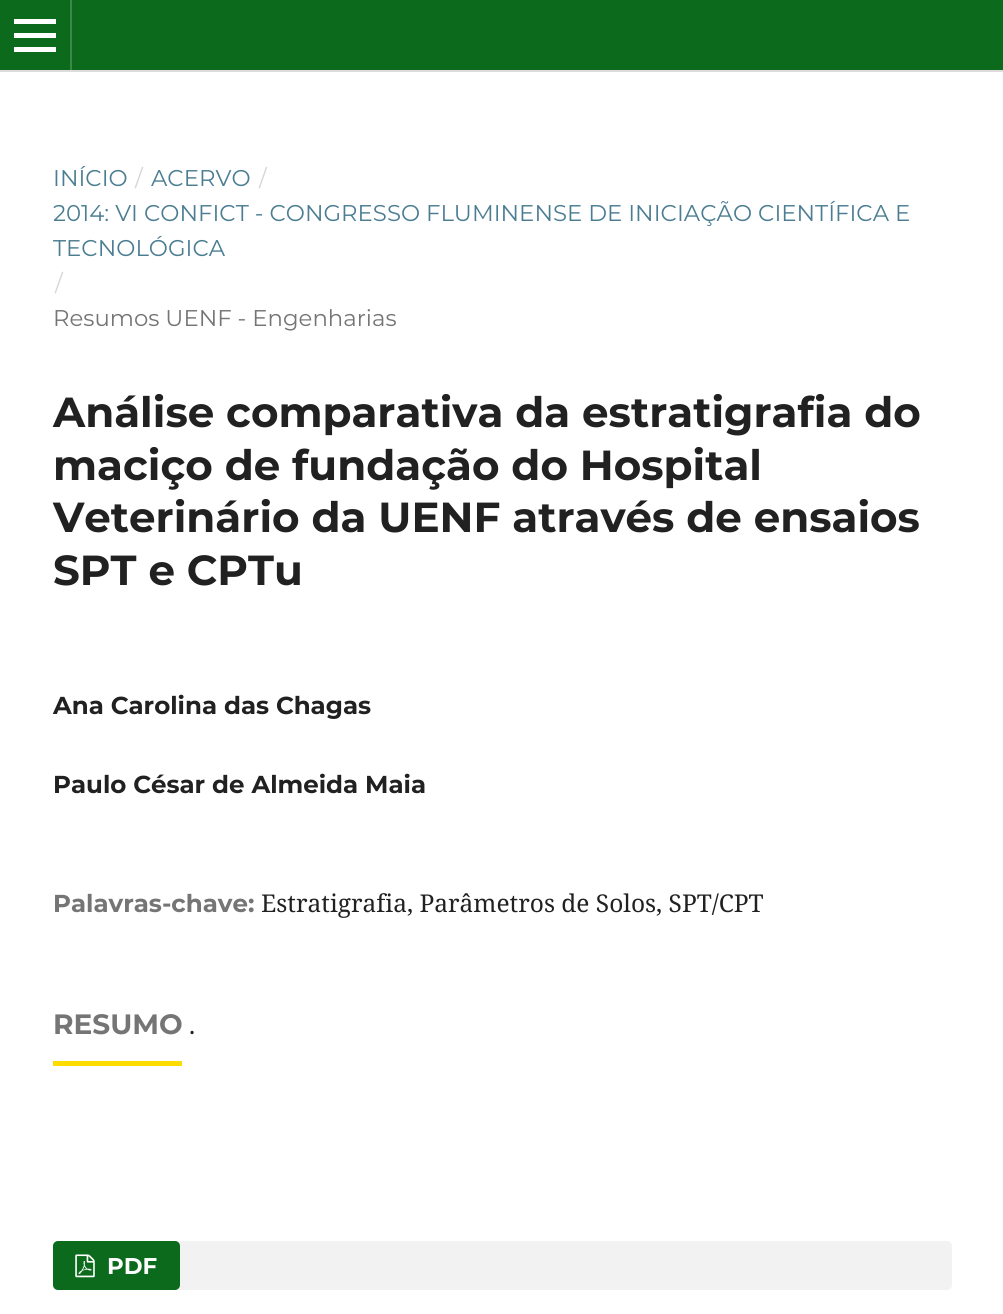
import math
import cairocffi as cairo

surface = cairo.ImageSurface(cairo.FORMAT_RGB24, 1003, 1314)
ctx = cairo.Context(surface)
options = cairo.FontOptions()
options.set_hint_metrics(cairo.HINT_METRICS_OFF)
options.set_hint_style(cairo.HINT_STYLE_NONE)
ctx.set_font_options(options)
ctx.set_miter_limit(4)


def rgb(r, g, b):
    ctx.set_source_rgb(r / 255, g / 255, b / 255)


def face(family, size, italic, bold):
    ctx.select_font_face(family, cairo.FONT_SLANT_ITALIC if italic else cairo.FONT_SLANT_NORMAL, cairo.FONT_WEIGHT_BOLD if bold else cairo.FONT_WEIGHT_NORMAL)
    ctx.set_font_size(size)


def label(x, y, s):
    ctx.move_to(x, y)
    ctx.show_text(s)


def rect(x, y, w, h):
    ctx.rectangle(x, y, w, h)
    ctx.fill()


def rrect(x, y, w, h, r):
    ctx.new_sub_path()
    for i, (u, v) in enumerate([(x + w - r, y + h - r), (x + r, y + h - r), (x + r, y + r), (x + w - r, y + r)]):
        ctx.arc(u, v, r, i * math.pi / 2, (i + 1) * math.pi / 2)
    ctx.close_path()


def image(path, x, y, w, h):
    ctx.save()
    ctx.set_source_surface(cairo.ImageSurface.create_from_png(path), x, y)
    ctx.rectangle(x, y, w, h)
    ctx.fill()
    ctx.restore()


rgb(255, 255, 255)
ctx.paint()
rgb(12, 106, 28)
rect(0, 0, 1003, 70)
rgb(221, 221, 221)
rect(0, 70, 1003, 2)
rgb(61, 136, 73)
rect(70, 0, 2, 70)
rgb(255, 255, 255)
rect(14, 47, 42, 5)
rect(14, 19, 42, 5)
rect(14, 33, 42, 5)
face('Montserrat', 22.8, 0, 0)
rgb(75, 125, 146)
label(53, 186, 'INÍCIO')
rgb(214, 214, 214)
label(135, 186, '/')
rgb(75, 125, 146)
label(151, 186, 'ACERVO')
rgb(214, 214, 214)
label(259, 186, '/')
rgb(75, 125, 146)
label(53, 221, '2014: VI CONFICT - CONGRESSO FLUMINENSE DE INICIAÇÃO CIENTÍFICA E')
label(53, 256, 'TECNOLÓGICA')
rgb(214, 214, 214)
label(55, 291, '/')
rgb(117, 117, 117)
label(53, 326, 'Resumos UENF - Engenharias')
face('Montserrat', 42, 0, 1)
rgb(33, 33, 33)
label(53, 427, 'Análise comparativa da estratigrafia do')
label(53, 480, 'maciço de fundação do Hospital')
label(53, 532, 'Veterinário da UENF através de ensaios')
label(53, 585, 'SPT e CPTu')
face('Montserrat', 24.5, 0, 1)
label(53, 714, 'Ana Carolina das Chagas')
label(53, 793, 'Paulo César de Almeida Maia')
rgb(117, 117, 117)
label(53, 912, 'Palavras-chave:')
face('Noto Serif', 24.5, 0, 0)
rgb(33, 33, 33)
label(261, 912, 'Estratigrafia, Parâmetros de Solos, SPT/CPT')
rgb(255, 220, 0)
rect(53, 1061, 129, 5)
face('Montserrat', 28, 0, 1)
rgb(117, 117, 117)
label(53, 1034, 'RESUMO')
face('Noto Serif', 24.5, 0, 0)
rgb(33, 33, 33)
label(189, 1034, '.')
rgb(242, 242, 242)
rrect(53, 1241, 899, 49, 5)
ctx.fill()
rgb(12, 106, 28)
rrect(53, 1241, 127, 49, 5)
ctx.fill()
image('image0.png', 75, 1254, 20, 24)
face('Montserrat', 22.8, 0, 1)
rgb(255, 255, 255)
label(107, 1274, 'PDF')
surface.write_to_png('render.png')
